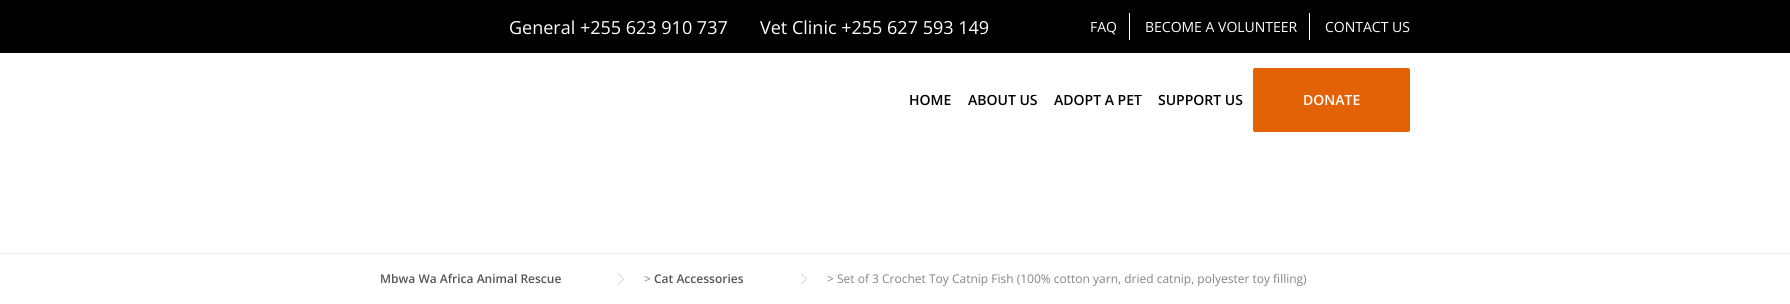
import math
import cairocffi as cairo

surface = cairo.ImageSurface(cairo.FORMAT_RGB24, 1790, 304)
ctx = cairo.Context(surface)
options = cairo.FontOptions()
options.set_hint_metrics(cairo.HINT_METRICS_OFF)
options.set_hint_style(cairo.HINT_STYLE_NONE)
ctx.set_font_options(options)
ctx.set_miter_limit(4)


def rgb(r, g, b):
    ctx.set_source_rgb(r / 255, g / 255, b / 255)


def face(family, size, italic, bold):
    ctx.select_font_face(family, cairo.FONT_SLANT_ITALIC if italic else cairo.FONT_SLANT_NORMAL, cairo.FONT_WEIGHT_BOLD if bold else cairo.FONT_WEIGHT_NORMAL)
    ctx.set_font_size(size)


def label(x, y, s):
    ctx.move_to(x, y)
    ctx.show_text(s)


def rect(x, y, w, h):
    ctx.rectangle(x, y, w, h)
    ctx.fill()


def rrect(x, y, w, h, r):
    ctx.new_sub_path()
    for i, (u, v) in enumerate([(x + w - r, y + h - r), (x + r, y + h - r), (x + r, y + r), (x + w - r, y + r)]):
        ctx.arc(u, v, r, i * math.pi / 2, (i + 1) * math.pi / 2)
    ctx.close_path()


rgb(255, 255, 255)
ctx.paint()
rgb(0, 0, 0)
rect(0, 0, 1790, 53)
face('Open Sans', 18, 0, 0)
rgb(255, 255, 255)
label(509, 34, 'General +255 623 910 737')
label(760, 34, 'Vet Clinic +255 627 593 149')
face('Open Sans', 14, 0, 0)
label(1090, 32, 'FAQ')
rect(1129, 13, 1, 27)
label(1145, 32, 'BECOME A VOLUNTEER')
rect(1309, 13, 1, 27)
label(1325, 32, 'CONTACT US')
face('Open Sans SemiBold', 14, 0, 0)
rgb(0, 0, 0)
label(909, 105, 'HOME')
label(968, 105, 'ABOUT US')
rgb(255, 255, 255)
ctx.new_path()
ctx.move_to(1033, 96)
ctx.line_to(1043, 96)
ctx.line_to(1038, 101)
ctx.close_path()
ctx.fill()
rgb(0, 0, 0)
label(1054, 105, 'ADOPT A PET')
rgb(255, 255, 255)
ctx.new_path()
ctx.move_to(1138, 96)
ctx.line_to(1148, 96)
ctx.line_to(1143, 101)
ctx.close_path()
ctx.fill()
rgb(0, 0, 0)
label(1158, 105, 'SUPPORT US')
rgb(255, 255, 255)
ctx.new_path()
ctx.move_to(1239, 96)
ctx.line_to(1249, 96)
ctx.line_to(1244, 101)
ctx.close_path()
ctx.fill()
rgb(227, 98, 6)
rrect(1253, 68, 157, 64, 2)
ctx.fill()
rgb(255, 255, 255)
label(1303, 105, 'DONATE')
rgb(236, 236, 238)
rect(0, 253, 1790, 1)
face('Open Sans SemiBold', 12, 0, 0)
rgb(85, 85, 85)
label(380, 283, 'Mbwa Wa Africa Animal Rescue')
rgb(204, 204, 204)
ctx.new_path()
ctx.move_to(618, 285)
ctx.line_to(618, 273)
ctx.line_to(624, 279)
ctx.close_path()
ctx.fill()
rgb(255, 255, 255)
ctx.new_path()
ctx.move_to(618, 284)
ctx.line_to(618, 274)
ctx.line_to(623, 279)
ctx.close_path()
ctx.fill()
face('Open Sans', 12, 0, 0)
rgb(133, 133, 133)
label(644, 283, '>')
face('Open Sans SemiBold', 12, 0, 0)
rgb(85, 85, 85)
label(654, 283, 'Cat Accessories')
rgb(204, 204, 204)
ctx.new_path()
ctx.move_to(801, 285)
ctx.line_to(801, 273)
ctx.line_to(807, 279)
ctx.close_path()
ctx.fill()
rgb(255, 255, 255)
ctx.new_path()
ctx.move_to(801, 284)
ctx.line_to(801, 274)
ctx.line_to(806, 279)
ctx.close_path()
ctx.fill()
face('Open Sans', 12, 0, 0)
rgb(133, 133, 133)
label(827, 283, '> Set of 3 Crochet Toy Catnip Fish (100% cotton yarn, dried catnip, polyester toy filling)')
surface.write_to_png('render.png')
